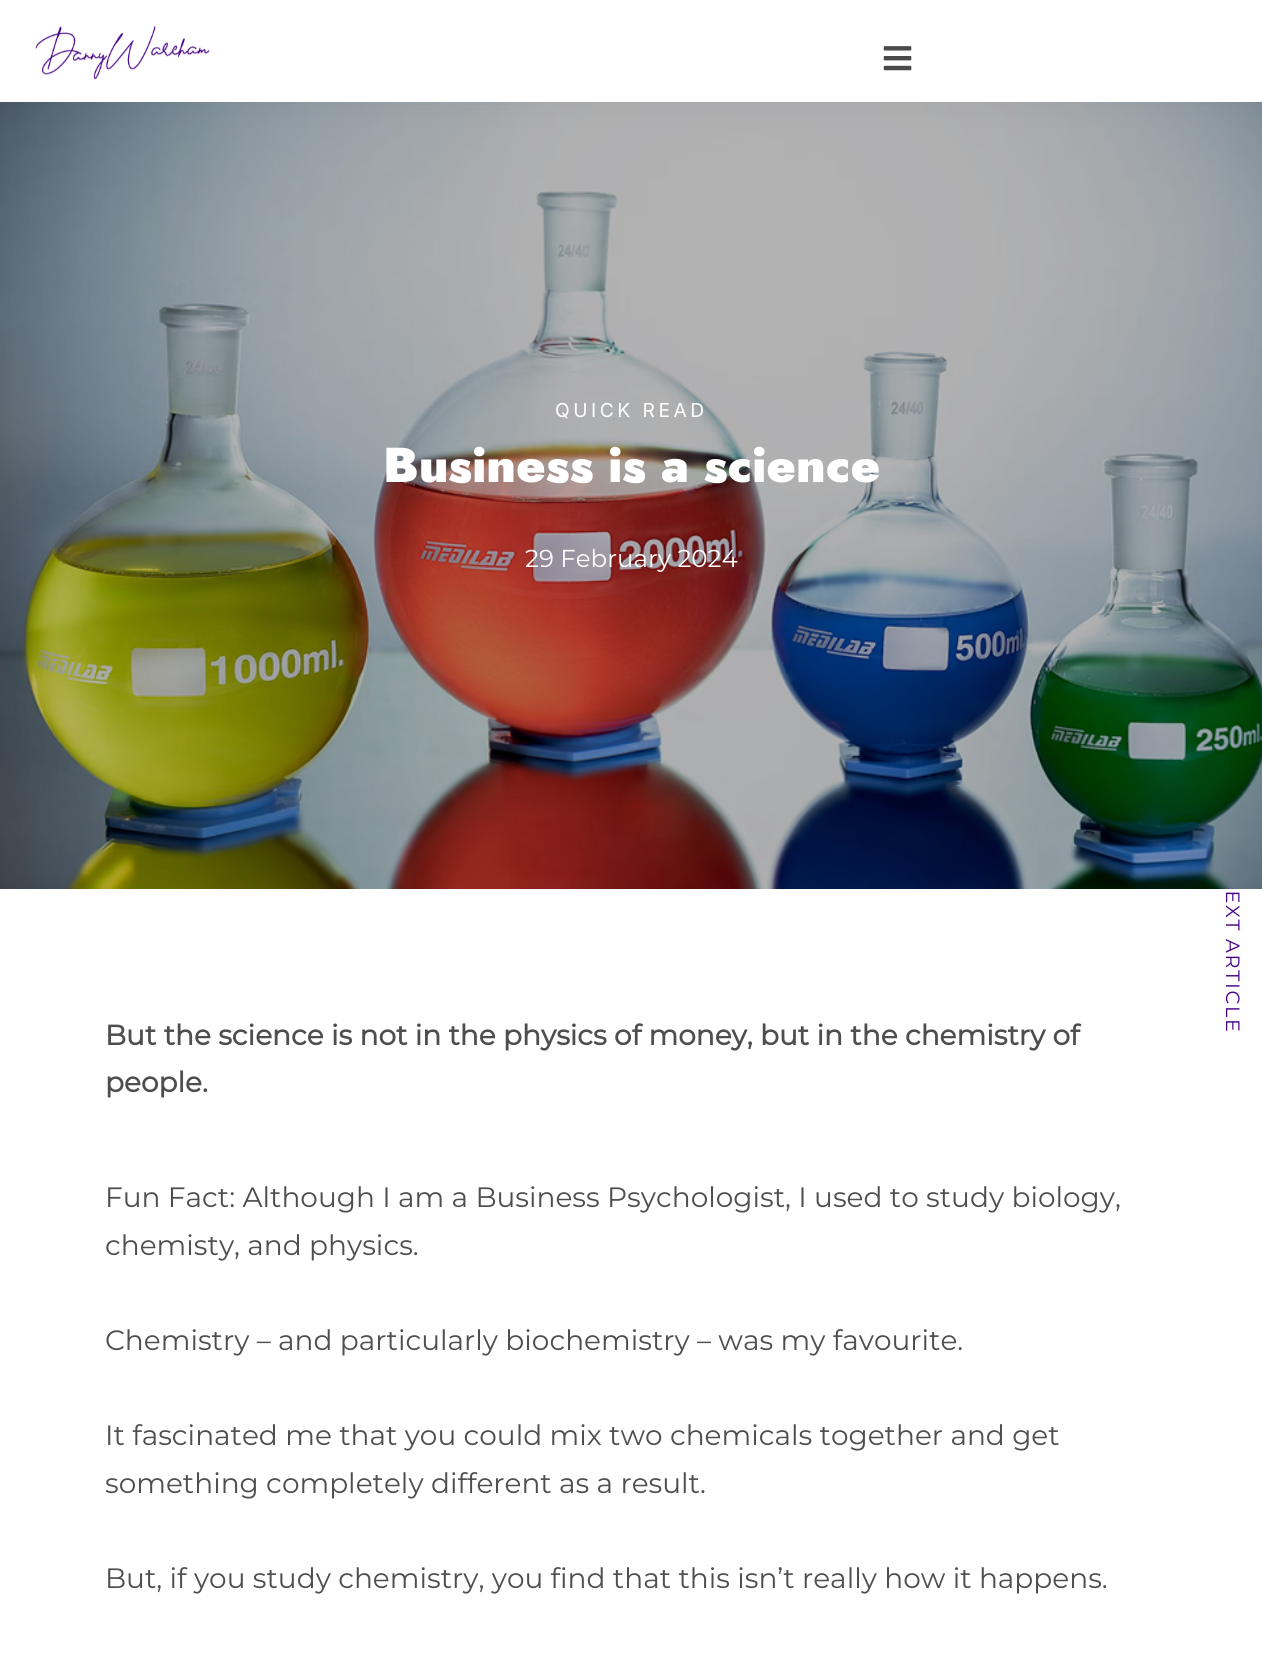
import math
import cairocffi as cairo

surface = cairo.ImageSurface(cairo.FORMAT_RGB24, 1262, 1663)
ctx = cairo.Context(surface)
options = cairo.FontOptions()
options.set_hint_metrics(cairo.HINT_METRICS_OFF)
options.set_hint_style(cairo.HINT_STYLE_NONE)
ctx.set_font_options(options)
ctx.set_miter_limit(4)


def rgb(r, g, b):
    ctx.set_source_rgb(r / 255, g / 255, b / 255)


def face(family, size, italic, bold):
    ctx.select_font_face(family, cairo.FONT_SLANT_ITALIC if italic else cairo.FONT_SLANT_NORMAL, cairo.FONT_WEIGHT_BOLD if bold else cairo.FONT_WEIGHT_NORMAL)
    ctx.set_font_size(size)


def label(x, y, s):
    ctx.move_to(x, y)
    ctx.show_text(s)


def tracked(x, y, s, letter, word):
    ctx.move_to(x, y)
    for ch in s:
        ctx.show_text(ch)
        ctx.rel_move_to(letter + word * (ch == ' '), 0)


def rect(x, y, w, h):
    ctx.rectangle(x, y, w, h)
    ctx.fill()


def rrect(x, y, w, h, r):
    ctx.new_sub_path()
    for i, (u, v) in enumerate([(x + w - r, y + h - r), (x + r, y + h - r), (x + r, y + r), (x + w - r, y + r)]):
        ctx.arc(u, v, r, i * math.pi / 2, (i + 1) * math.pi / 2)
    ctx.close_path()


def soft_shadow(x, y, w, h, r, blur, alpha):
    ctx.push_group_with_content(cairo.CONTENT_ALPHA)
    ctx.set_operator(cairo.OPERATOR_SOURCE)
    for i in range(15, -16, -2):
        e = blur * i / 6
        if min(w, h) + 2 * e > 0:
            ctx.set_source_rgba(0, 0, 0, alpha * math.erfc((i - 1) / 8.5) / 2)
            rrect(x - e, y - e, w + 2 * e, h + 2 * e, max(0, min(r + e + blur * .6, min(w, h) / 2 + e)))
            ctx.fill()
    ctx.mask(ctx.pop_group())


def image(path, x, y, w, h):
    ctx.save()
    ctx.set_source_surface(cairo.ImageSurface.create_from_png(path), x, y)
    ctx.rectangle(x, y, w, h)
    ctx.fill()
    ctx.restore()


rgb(255, 255, 255)
ctx.paint()
face('Montserrat', 19.25, 0, 0)
rgb(70, 0, 136)
ctx.save()
ctx.translate(1226, 873)
ctx.rotate(90 * math.pi / 180)
tracked(0, 0, 'NEXT ARTICLE', 1.75, 0)
ctx.restore()
image('image2.png', 0, 102, 1262, 787)
rgb(0, 0, 0)
soft_shadow(0, 0, 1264, 102, 0, 17.5, 0.05)
rgb(255, 255, 255)
rect(0, 0, 1262, 102)
image('image0.png', 35, 26, 175, 54)
image('image1.png', 883, 46, 29, 25)
face('Inter', 19.25, 0, 0)
tracked(555, 417, 'QUICK READ', 3.5, 0)
face('Jost Black', 49, 0, 0)
label(383, 482, 'Business is a science')
face('Montserrat', 24.5, 0, 0)
label(525, 567, '29 February 2024')
face('Montserrat', 28, 0, 1)
rgb(78, 78, 78)
label(105, 1045, 'But the science is not in the physics of money, but in the chemistry of')
label(105, 1092, 'people.')
face('Montserrat', 28, 0, 0)
label(105, 1207, 'Fun Fact: Although I am a Business Psychologist, I used to study biology,')
label(105, 1255, 'chemisty, and physics.')
label(105, 1350, 'Chemistry – and particularly biochemistry – was my favourite.')
label(105, 1445, 'It fascinated me that you could mix two chemicals together and get')
label(105, 1493, 'something completely different as a result.')
label(105, 1588, 'But, if you study chemistry, you find that this isn’t really how it happens.')
surface.write_to_png('render.png')
